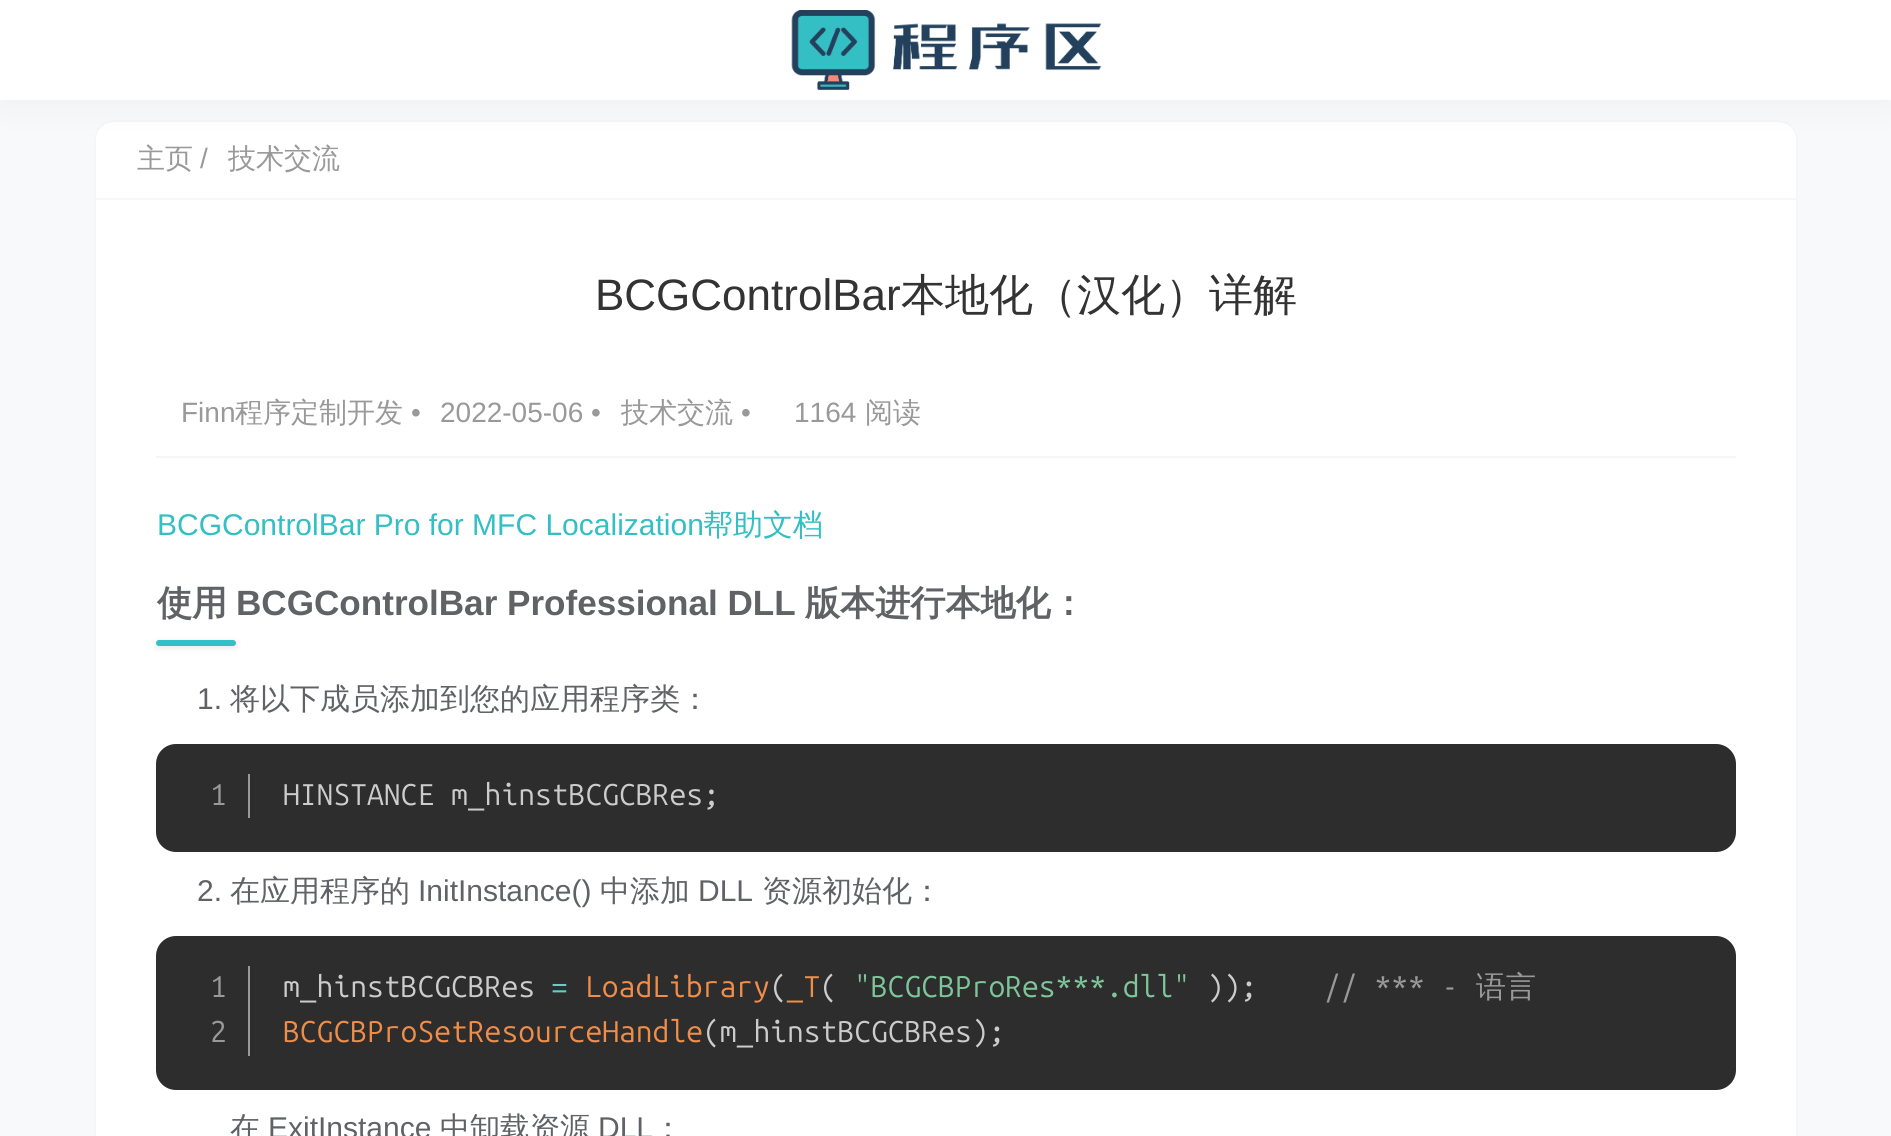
import math
import cairocffi as cairo

surface = cairo.ImageSurface(cairo.FORMAT_RGB24, 1891, 1136)
ctx = cairo.Context(surface)
options = cairo.FontOptions()
options.set_hint_metrics(cairo.HINT_METRICS_OFF)
options.set_hint_style(cairo.HINT_STYLE_NONE)
ctx.set_font_options(options)
ctx.set_miter_limit(4)


def rgb(r, g, b):
    ctx.set_source_rgb(r / 255, g / 255, b / 255)


def face(family, size, italic, bold):
    ctx.select_font_face(family, cairo.FONT_SLANT_ITALIC if italic else cairo.FONT_SLANT_NORMAL, cairo.FONT_WEIGHT_BOLD if bold else cairo.FONT_WEIGHT_NORMAL)
    ctx.set_font_size(size)


def label(x, y, s):
    ctx.move_to(x, y)
    ctx.show_text(s)


def tracked(x, y, s, letter, word):
    ctx.move_to(x, y)
    for ch in s:
        ctx.show_text(ch)
        ctx.rel_move_to(letter + word * (ch == ' '), 0)


def rect(x, y, w, h):
    ctx.rectangle(x, y, w, h)
    ctx.fill()


def rrect(x, y, w, h, r):
    ctx.new_sub_path()
    for i, (u, v) in enumerate([(x + w - r, y + h - r), (x + r, y + h - r), (x + r, y + r), (x + w - r, y + r)]):
        ctx.arc(u, v, r, i * math.pi / 2, (i + 1) * math.pi / 2)
    ctx.close_path()


def soft_shadow(x, y, w, h, r, blur, alpha):
    ctx.push_group_with_content(cairo.CONTENT_ALPHA)
    ctx.set_operator(cairo.OPERATOR_SOURCE)
    for i in range(15, -16, -2):
        e = blur * i / 6
        if min(w, h) + 2 * e > 0:
            ctx.set_source_rgba(0, 0, 0, alpha * math.erfc((i - 1) / 8.5) / 2)
            rrect(x - e, y - e, w + 2 * e, h + 2 * e, max(0, min(r + e + blur * .6, min(w, h) / 2 + e)))
            ctx.fill()
    ctx.mask(ctx.pop_group())


def image(path, x, y, w, h):
    ctx.save()
    ctx.set_source_surface(cairo.ImageSurface.create_from_png(path), x, y)
    ctx.rectangle(x, y, w, h)
    ctx.fill()
    ctx.restore()


rgb(247, 249, 250)
ctx.paint()
rgb(255, 255, 255)
ctx.new_path()
ctx.move_to(114, 120)
ctx.line_to(1778, 120)
ctx.curve_to(1789, 120, 1798, 129, 1798, 140)
ctx.line_to(1798, 1136)
ctx.line_to(94, 1136)
ctx.line_to(94, 140)
ctx.curve_to(94, 129, 103, 120, 114, 120)
ctx.close_path()
ctx.fill()
rrect(95, 121, 1702, 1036, 19)
rgb(245, 246, 247)
ctx.stroke()
rgb(0, 0, 0)
soft_shadow(0, 0, 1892, 100, 0, 20, 0.05)
rgb(255, 255, 255)
rect(0, 0, 1891, 100)
image('image0.png', 791, 10, 311, 80)
rgb(247, 247, 247)
rect(96, 198, 1700, 2)
face('WenQuanYi Zen Hei Medium', 28, 0, 0)
rgb(153, 153, 153)
label(137, 168, '主页')
face('Liberation Sans', 28, 0, 0)
label(200, 168, '/')
face('WenQuanYi Zen Hei Medium', 28, 0, 0)
label(228, 168, '技术交流')
face('Liberation Sans', 44, 0, 0)
rgb(51, 51, 51)
label(595, 310, 'BCGControlBar')
face('WenQuanYi Zen Hei Medium', 44, 0, 0)
label(901, 310, '本地化（汉化）详解')
rgb(245, 246, 247)
rect(156, 456, 1580, 2)
face('Liberation Sans', 28, 0, 0)
rgb(153, 153, 153)
label(181, 422, 'Finn')
face('WenQuanYi Zen Hei Medium', 28, 0, 0)
label(235, 422, '程序定制开发')
face('Liberation Sans', 28, 0, 0)
label(411, 422, '•')
label(440, 422, '2022-05-06 •')
face('WenQuanYi Zen Hei Medium', 28, 0, 0)
label(621, 422, '技术交流')
face('Liberation Sans', 28, 0, 0)
label(741, 422, '•')
label(794, 422, '1164')
face('WenQuanYi Zen Hei Medium', 28, 0, 0)
label(865, 422, '阅读')
face('Liberation Sans', 30, 0, 0)
rgb(51, 191, 196)
label(157, 535, 'BCGControlBar Pro for MFC Localization')
face('WenQuanYi Zen Hei Medium', 30, 0, 0)
label(703, 535, '帮助文档')
face('WenQuanYi Zen Hei', 35.1, 0, 1)
rgb(96, 98, 102)
label(157, 615, '使用')
face('Liberation Sans', 35.1, 0, 1)
label(236, 615, 'BCGControlBar Professional DLL')
face('WenQuanYi Zen Hei', 35.1, 0, 1)
label(805, 615, '版本进行本地化：')
rgb(26, 26, 26)
soft_shadow(156, 642, 80, 6, 3, 3, 0.1)
rgb(51, 191, 196)
rrect(156, 640, 80, 6, 3)
ctx.fill()
face('Liberation Sans', 30, 0, 0)
rgb(96, 98, 102)
label(197, 709, '1.')
face('WenQuanYi Zen Hei Medium', 30, 0, 0)
label(230, 709, '将以下成员添加到您的应用程序类：')
rgb(45, 45, 45)
rrect(156, 744, 1580, 108, 20)
ctx.fill()
rgb(153, 153, 153)
rect(248, 774, 2, 44)
face('Ubuntu Mono', 30, 0, 0)
tracked(210, 805, '1', -2, 0)
rgb(204, 204, 204)
label(283, 805, 'HINSTANCE m_hinstBCGCBRes;')
face('Liberation Sans', 30, 0, 0)
rgb(96, 98, 102)
label(197, 901, '2.')
face('WenQuanYi Zen Hei Medium', 30, 0, 0)
label(230, 901, '在应用程序的')
face('Liberation Sans', 30, 0, 0)
label(418, 901, 'InitInstance()')
face('WenQuanYi Zen Hei Medium', 30, 0, 0)
label(600, 901, '中添加')
face('Liberation Sans', 30, 0, 0)
label(698, 901, 'DLL')
face('WenQuanYi Zen Hei Medium', 30, 0, 0)
label(762, 901, '资源初始化：')
rgb(45, 45, 45)
rrect(156, 936, 1580, 154, 20)
ctx.fill()
face('Ubuntu Mono', 30, 0, 0)
rgb(204, 204, 204)
label(283, 997, 'm_hinstBCGCBRes')
rgb(240, 141, 73)
label(585, 997, 'LoadLibrary _T')
face('WenQuanYi Zen Hei Medium', 30, 0, 0)
rgb(153, 153, 153)
label(1476, 997, '语言')
rect(248, 966, 2, 90)
face('Ubuntu Mono', 30, 0, 0)
tracked(210, 997, '1', -2, 0)
tracked(210, 1042, '2', -2, 0)
rgb(103, 205, 204)
label(551, 997, '=')
rgb(204, 204, 204)
label(770, 997, '(')
label(820, 997, '(')
rgb(126, 198, 153)
label(854, 997, '"BCGCBProRes***.dll"')
rgb(204, 204, 204)
label(1207, 997, '));')
rgb(153, 153, 153)
label(1324, 997, '// *** -')
rgb(240, 141, 73)
label(283, 1042, 'BCGCBProSetResourceHandle')
rgb(204, 204, 204)
label(703, 1042, '(m_hinstBCGCBRes);')
face('WenQuanYi Zen Hei Medium', 30, 0, 0)
rgb(96, 98, 102)
label(230, 1138, '在')
face('Liberation Sans', 30, 0, 0)
label(268, 1138, 'ExitInstance')
face('WenQuanYi Zen Hei Medium', 30, 0, 0)
label(440, 1138, '中卸载资源')
face('Liberation Sans', 30, 0, 0)
label(598, 1138, 'DLL')
face('WenQuanYi Zen Hei Medium', 30, 0, 0)
label(653, 1138, '：')
surface.write_to_png('render.png')
